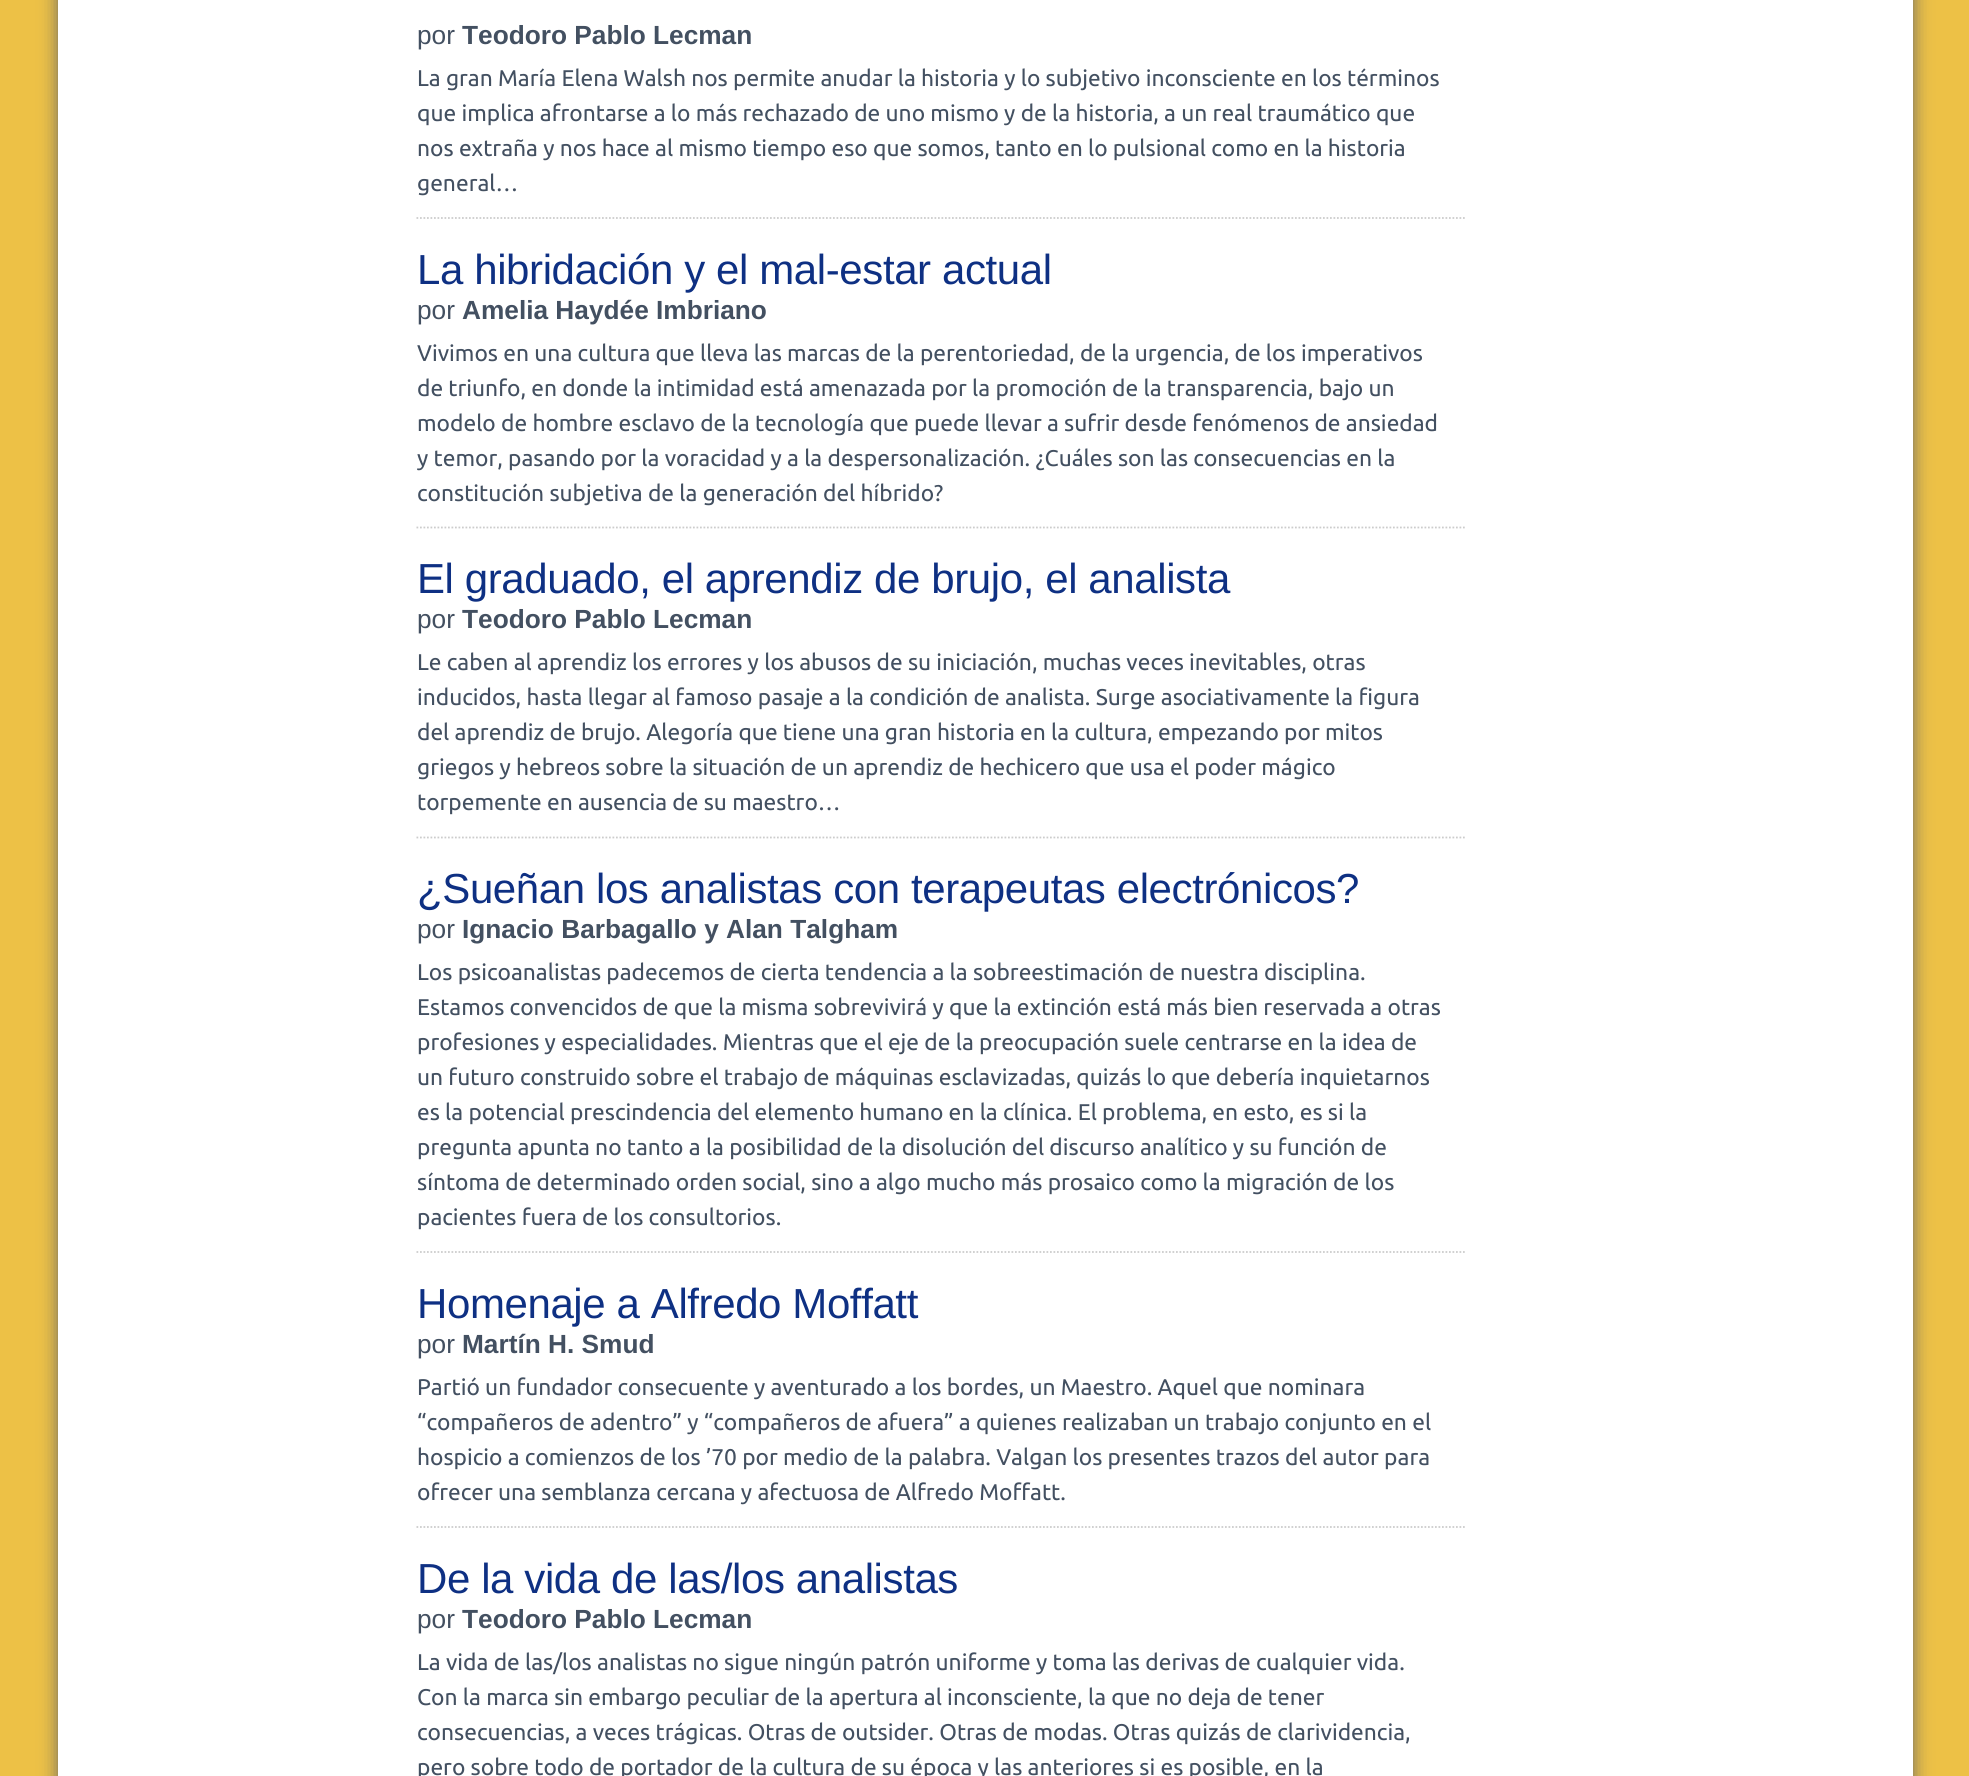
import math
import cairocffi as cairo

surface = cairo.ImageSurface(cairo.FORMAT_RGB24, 1969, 1776)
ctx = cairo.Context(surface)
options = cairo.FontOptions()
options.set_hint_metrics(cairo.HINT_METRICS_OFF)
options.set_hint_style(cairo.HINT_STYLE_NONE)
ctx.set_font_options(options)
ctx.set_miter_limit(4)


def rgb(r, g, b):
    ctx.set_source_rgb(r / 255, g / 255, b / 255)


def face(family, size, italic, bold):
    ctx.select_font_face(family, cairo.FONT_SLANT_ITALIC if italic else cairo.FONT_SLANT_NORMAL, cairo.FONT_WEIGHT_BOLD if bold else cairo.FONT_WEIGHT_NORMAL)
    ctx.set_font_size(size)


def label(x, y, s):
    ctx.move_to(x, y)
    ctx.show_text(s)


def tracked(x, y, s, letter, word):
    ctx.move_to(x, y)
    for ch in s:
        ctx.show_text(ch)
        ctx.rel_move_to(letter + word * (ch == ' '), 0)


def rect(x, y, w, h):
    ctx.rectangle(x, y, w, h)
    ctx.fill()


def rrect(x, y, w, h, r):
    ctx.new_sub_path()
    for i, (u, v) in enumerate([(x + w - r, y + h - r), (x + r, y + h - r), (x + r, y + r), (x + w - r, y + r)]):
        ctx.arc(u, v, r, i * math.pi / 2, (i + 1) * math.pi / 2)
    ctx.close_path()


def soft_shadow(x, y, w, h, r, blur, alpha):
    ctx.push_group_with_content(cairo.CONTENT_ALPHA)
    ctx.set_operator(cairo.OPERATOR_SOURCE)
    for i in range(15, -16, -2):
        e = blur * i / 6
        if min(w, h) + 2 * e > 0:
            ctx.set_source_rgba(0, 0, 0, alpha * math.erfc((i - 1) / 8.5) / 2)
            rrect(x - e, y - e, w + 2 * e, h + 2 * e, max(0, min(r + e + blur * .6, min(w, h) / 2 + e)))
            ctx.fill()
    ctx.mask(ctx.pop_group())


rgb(237, 193, 70)
ctx.paint()
rgb(102, 102, 102)
soft_shadow(58, -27, 1855, 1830, 0, 9, 1)
rgb(255, 255, 255)
rect(58, 0, 1855, 1776)
ctx.new_path()
ctx.move_to(416.5, 218)
ctx.line_to(1466.5, 218)
rgb(204, 204, 204)
ctx.set_line_width(1.8)
ctx.set_dash([1.75, 1.75])
ctx.stroke()
face('Liberation Sans', 26.25, 0, 0)
rgb(67, 80, 97)
label(417, 44, 'por')
face('Liberation Sans', 26.25, 0, 1)
label(462, 44, 'Teodoro Pablo Lecman')
face('Ubuntu', 22.75, 0, 0)
label(417, 86, 'La gran María Elena Walsh nos permite anudar la historia y lo subjetivo inconsciente en los términos')
label(417, 121, 'que implica afrontarse a lo más rechazado de uno mismo y de la historia, a un real traumático que')
label(417, 156, 'nos extraña y nos hace al mismo tiempo eso que somos, tanto en lo pulsional como en la historia')
label(417, 191, 'general…')
ctx.new_path()
ctx.move_to(416.5, 527.5)
ctx.line_to(1466.5, 527.5)
rgb(204, 204, 204)
ctx.stroke()
face('Liberation Sans', 42, 0, 0)
rgb(14, 48, 131)
tracked(417, 284, 'La hibridación y el mal-estar actual', -0.4, 0)
face('Liberation Sans', 26.25, 0, 0)
rgb(67, 80, 97)
label(417, 319, 'por')
face('Liberation Sans', 26.25, 0, 1)
label(462, 319, 'Amelia Haydée Imbriano')
face('Ubuntu', 22.75, 0, 0)
label(417, 361, 'Vivimos en una cultura que lleva las marcas de la perentoriedad, de la urgencia, de los imperativos')
label(417, 396, 'de triunfo, en donde la intimidad está amenazada por la promoción de la transparencia, bajo un')
label(417, 431, 'modelo de hombre esclavo de la tecnología que puede llevar a sufrir desde fenómenos de ansiedad')
label(417, 466, 'y temor, pasando por la voracidad y a la despersonalización. ¿Cuáles son las consecuencias en la')
label(417, 501, 'constitución subjetiva de la generación del híbrido?')
ctx.new_path()
ctx.move_to(416.5, 837.5)
ctx.line_to(1466.5, 837.5)
rgb(204, 204, 204)
ctx.stroke()
face('Liberation Sans', 42, 0, 0)
rgb(14, 48, 131)
tracked(417, 593, 'El graduado, el aprendiz de brujo, el analista', -0.4, 0)
face('Liberation Sans', 26.25, 0, 0)
rgb(67, 80, 97)
label(417, 628, 'por')
face('Liberation Sans', 26.25, 0, 1)
label(462, 628, 'Teodoro Pablo Lecman')
face('Ubuntu', 22.75, 0, 0)
label(417, 670, 'Le caben al aprendiz los errores y los abusos de su iniciación, muchas veces inevitables, otras')
label(417, 705, 'inducidos, hasta llegar al famoso pasaje a la condición de analista. Surge asociativamente la figura')
label(417, 740, 'del aprendiz de brujo. Alegoría que tiene una gran historia en la cultura, empezando por mitos')
label(417, 775, 'griegos y hebreos sobre la situación de un aprendiz de hechicero que usa el poder mágico')
label(417, 810, 'torpemente en ausencia de su maestro…')
ctx.new_path()
ctx.move_to(416.5, 1252)
ctx.line_to(1466.5, 1252)
rgb(204, 204, 204)
ctx.stroke()
face('Liberation Sans', 42, 0, 0)
rgb(14, 48, 131)
tracked(417, 903, '¿Sueñan los analistas con terapeutas electrónicos?', -0.4, 0)
face('Liberation Sans', 26.25, 0, 0)
rgb(67, 80, 97)
label(417, 938, 'por')
face('Liberation Sans', 26.25, 0, 1)
label(462, 938, 'Ignacio Barbagallo y Alan Talgham')
face('Ubuntu', 22.75, 0, 0)
label(417, 980, 'Los psicoanalistas padecemos de cierta tendencia a la sobreestimación de nuestra disciplina.')
label(417, 1015, 'Estamos convencidos de que la misma sobrevivirá y que la extinción está más bien reservada a otras')
label(417, 1050, 'profesiones y especialidades. Mientras que el eje de la preocupación suele centrarse en la idea de')
label(417, 1085, 'un futuro construido sobre el trabajo de máquinas esclavizadas, quizás lo que debería inquietarnos')
label(417, 1120, 'es la potencial prescindencia del elemento humano en la clínica. El problema, en esto, es si la')
label(417, 1155, 'pregunta apunta no tanto a la posibilidad de la disolución del discurso analítico y su función de')
label(417, 1190, 'síntoma de determinado orden social, sino a algo mucho más prosaico como la migración de los')
label(417, 1225, 'pacientes fuera de los consultorios.')
ctx.new_path()
ctx.move_to(416.5, 1527)
ctx.line_to(1466.5, 1527)
rgb(204, 204, 204)
ctx.stroke()
face('Liberation Sans', 42, 0, 0)
rgb(14, 48, 131)
tracked(417, 1318, 'Homenaje a Alfredo Moffatt', -0.4, 0)
face('Liberation Sans', 26.25, 0, 0)
rgb(67, 80, 97)
label(417, 1353, 'por')
face('Liberation Sans', 26.25, 0, 1)
label(462, 1353, 'Martín H. Smud')
face('Ubuntu', 22.75, 0, 0)
label(417, 1395, 'Partió un fundador consecuente y aventurado a los bordes, un Maestro. Aquel que nominara')
label(417, 1430, '“compañeros de adentro” y “compañeros de afuera” a quienes realizaban un trabajo conjunto en el')
label(417, 1465, 'hospicio a comienzos de los ’70 por medio de la palabra. Valgan los presentes trazos del autor para')
label(417, 1500, 'ofrecer una semblanza cercana y afectuosa de Alfredo Moffatt.')
face('Liberation Sans', 42, 0, 0)
rgb(14, 48, 131)
tracked(417, 1593, 'De la vida de las/los analistas', -0.4, 0)
face('Liberation Sans', 26.25, 0, 0)
rgb(67, 80, 97)
label(417, 1628, 'por')
face('Liberation Sans', 26.25, 0, 1)
label(462, 1628, 'Teodoro Pablo Lecman')
face('Ubuntu', 22.75, 0, 0)
label(417, 1670, 'La vida de las/los analistas no sigue ningún patrón uniforme y toma las derivas de cualquier vida.')
label(417, 1705, 'Con la marca sin embargo peculiar de la apertura al inconsciente, la que no deja de tener')
label(417, 1740, 'consecuencias, a veces trágicas. Otras de outsider. Otras de modas. Otras quizás de clarividencia,')
label(417, 1775, 'pero sobre todo de portador de la cultura de su época y las anteriores si es posible, en la')
surface.write_to_png('render.png')
